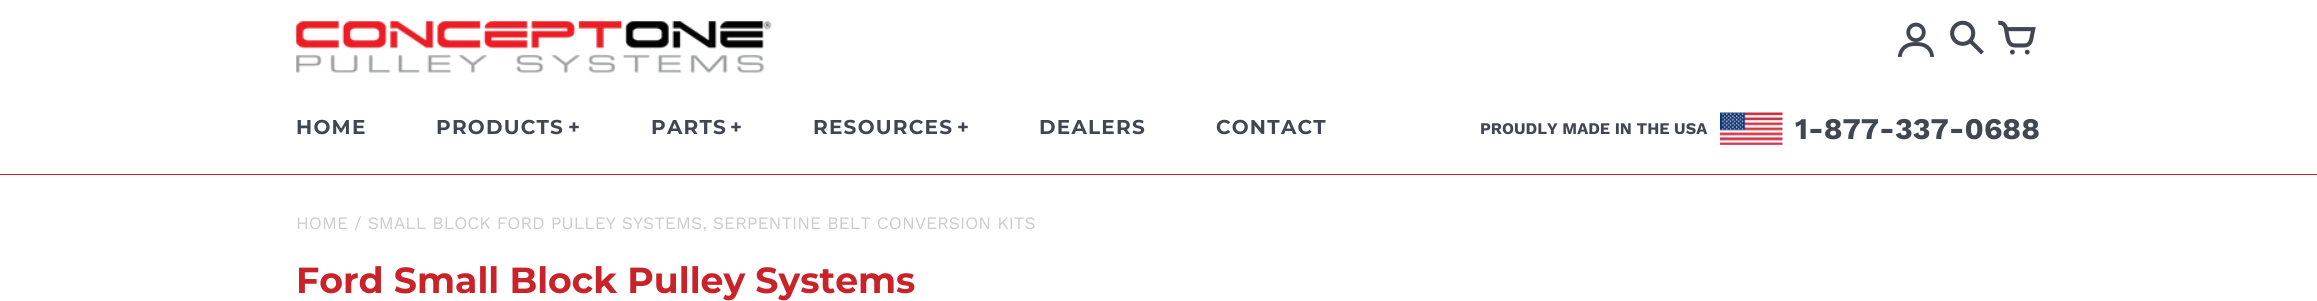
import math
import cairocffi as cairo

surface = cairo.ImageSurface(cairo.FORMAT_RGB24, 2317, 301)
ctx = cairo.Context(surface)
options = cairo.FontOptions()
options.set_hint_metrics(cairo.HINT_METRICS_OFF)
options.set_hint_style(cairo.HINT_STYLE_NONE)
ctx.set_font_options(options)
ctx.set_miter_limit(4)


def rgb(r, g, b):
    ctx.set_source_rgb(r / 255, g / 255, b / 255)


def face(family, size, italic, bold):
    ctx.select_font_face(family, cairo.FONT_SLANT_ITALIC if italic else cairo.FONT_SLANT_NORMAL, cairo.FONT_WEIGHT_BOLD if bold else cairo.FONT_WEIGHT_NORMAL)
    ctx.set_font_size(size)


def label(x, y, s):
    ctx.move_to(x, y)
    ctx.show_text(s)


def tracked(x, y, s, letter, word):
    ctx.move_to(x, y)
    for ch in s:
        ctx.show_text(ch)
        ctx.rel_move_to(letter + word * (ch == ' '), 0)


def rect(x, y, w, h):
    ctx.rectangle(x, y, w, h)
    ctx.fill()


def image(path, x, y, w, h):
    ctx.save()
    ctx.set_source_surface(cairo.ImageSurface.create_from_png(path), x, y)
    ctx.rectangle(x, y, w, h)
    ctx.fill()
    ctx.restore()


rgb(255, 255, 255)
ctx.paint()
rgb(201, 34, 40)
rect(0, 174, 2317, 1)
image('image0.png', 296, 21, 476, 52)
image('image1.png', 1897, 22, 37, 35)
face('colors', 38, 0, 0)
rgb(64, 71, 82)
label(1948, 59, '2')
label(1998, 59, '3')
face('Montserrat', 20, 0, 1)
tracked(296, 134, 'HOME', 1.25, 0)
tracked(436, 134, 'PRODUCTS', 1.25, 0)
tracked(568, 134, '+', 1.25, 0)
tracked(651, 134, 'PARTS', 1.25, 0)
tracked(730, 134, '+', 1.25, 0)
tracked(813, 134, 'RESOURCES', 1.25, 0)
tracked(957, 134, '+', 1.25, 0)
tracked(1039, 134, 'DEALERS', 1.25, 0)
tracked(1216, 134, 'CONTACT', 1.25, 0)
face('Work Sans', 16.25, 0, 1)
label(1480, 134, 'PROUDLY MADE IN THE USA')
image('image2.png', 1720, 112, 63, 33)
face('Work Sans', 30, 0, 1)
label(1795, 139, '1-877-337-0688')
face('Work Sans', 17.5, 0, 0)
rgb(204, 204, 204)
label(296, 229, 'HOME / SMALL BLOCK FORD PULLEY SYSTEMS, SERPENTINE BELT CONVERSION KITS')
face('Montserrat', 36.25, 0, 1)
rgb(201, 34, 40)
label(296, 293, 'Ford Small Block Pulley Systems')
surface.write_to_png('render.png')
